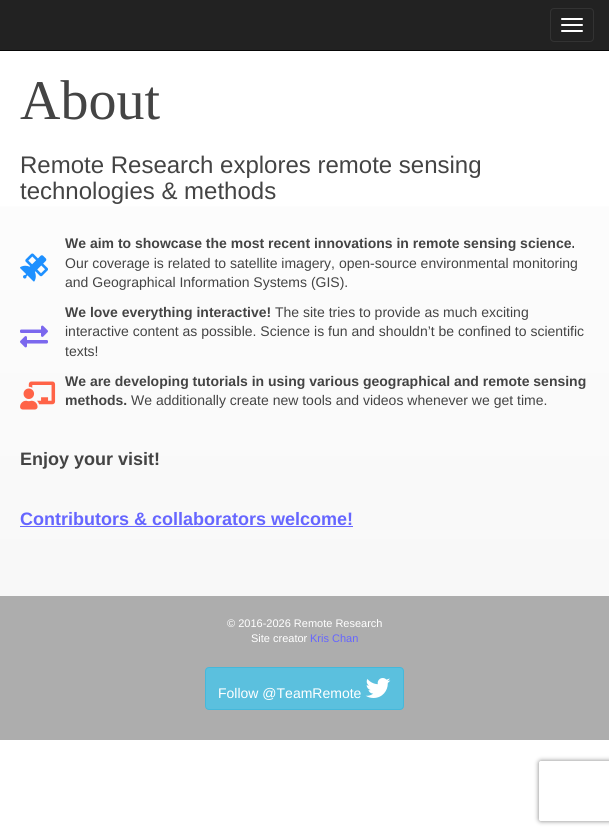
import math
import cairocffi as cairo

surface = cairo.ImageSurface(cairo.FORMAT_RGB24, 609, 835)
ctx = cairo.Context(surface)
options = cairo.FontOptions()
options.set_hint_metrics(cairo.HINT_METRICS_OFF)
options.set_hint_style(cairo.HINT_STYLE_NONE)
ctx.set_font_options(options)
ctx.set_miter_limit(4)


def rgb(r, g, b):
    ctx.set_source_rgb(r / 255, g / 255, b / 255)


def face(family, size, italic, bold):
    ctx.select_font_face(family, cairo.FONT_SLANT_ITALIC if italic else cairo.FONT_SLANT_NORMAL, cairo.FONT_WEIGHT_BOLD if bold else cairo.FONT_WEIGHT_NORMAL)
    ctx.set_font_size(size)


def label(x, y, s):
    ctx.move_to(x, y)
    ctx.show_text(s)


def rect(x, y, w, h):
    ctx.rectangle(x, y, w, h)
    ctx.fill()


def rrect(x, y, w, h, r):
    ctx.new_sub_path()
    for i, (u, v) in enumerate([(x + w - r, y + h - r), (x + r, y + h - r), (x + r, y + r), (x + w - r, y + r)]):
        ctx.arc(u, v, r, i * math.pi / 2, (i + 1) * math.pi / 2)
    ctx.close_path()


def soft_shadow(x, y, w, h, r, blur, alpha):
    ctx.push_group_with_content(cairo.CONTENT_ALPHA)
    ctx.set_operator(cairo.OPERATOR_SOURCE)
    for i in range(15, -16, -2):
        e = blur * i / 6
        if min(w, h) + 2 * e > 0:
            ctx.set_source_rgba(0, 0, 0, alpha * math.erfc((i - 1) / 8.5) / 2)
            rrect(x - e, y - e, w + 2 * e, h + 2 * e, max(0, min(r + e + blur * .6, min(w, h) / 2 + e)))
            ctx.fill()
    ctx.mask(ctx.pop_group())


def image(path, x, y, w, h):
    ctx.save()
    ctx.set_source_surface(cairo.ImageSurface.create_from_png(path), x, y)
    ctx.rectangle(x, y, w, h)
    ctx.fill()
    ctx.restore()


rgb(255, 255, 255)
ctx.paint()
rgb(34, 34, 34)
rect(0, 0, 609, 50)
rgb(8, 8, 8)
rect(0, 50, 609, 1)
rrect(550.5, 8.5, 43, 33, 3.5)
rgb(51, 51, 51)
ctx.set_line_width(1)
ctx.stroke()
rgb(255, 255, 255)
rrect(561, 18, 22, 2, 1)
ctx.fill()
rrect(561, 24, 22, 2, 1)
ctx.fill()
rrect(561, 30, 22, 2, 1)
ctx.fill()
gradient = cairo.LinearGradient(305, 740, 305, 0)
gradient.add_color_stop_rgba(0, 0.965, 0.965, 0.965, 1)
gradient.add_color_stop_rgba(1, 1, 1, 1, 1)
ctx.set_source(gradient)
rect(0, 206, 609, 390)
face('Liberation Serif', 56, 0, 0)
rgb(68, 68, 68)
label(20, 119, 'About')
face('Liberation Sans', 24, 0, 0)
label(20, 173, 'Remote Research explores remote sensing')
label(20, 199, 'technologies & methods')
image('image0.png', 20, 253, 28, 29)
face('Liberation Sans', 14, 0, 1)
label(65, 248, 'We aim to showcase the most recent innovations in remote sensing science.')
face('Liberation Sans', 14, 0, 0)
label(65, 268, 'Our coverage is related to satellite imagery, open-source environmental monitoring')
label(65, 287, 'and Geographical Information Systems (GIS).')
image('image1.png', 20, 325, 28, 23)
face('Liberation Sans', 14, 0, 1)
label(65, 317, 'We love everything interactive!')
face('Liberation Sans', 14, 0, 0)
label(275, 317, 'The site tries to provide as much exciting')
label(65, 336, 'interactive content as possible. Science is fun and shouldn’t be confined to scientific')
label(65, 356, 'texts!')
image('image2.png', 20, 381, 36, 29)
face('Liberation Sans', 14, 0, 1)
label(65, 386, 'We are developing tutorials in using various geographical and remote sensing')
label(65, 405, 'methods.')
face('Liberation Sans', 14, 0, 0)
label(131, 405, 'We additionally create new tools and videos whenever we get time.')
face('Liberation Sans', 18, 0, 1)
label(20, 465, 'Enjoy your visit!')
rgb(102, 102, 255)
label(20, 525, 'Contributors & collaborators welcome!')
rect(20, 526, 333, 1)
rgb(173, 173, 173)
rect(0, 596, 609, 144)
face('Liberation Sans', 11, 0, 0)
rgb(255, 255, 255)
label(227, 627, '© 2016-2026 Remote Research')
label(251, 642, 'Site creator')
rgb(102, 102, 255)
label(310, 642, 'Kris Chan')
rgb(91, 192, 222)
rrect(205.5, 667.5, 198, 42, 3.5)
ctx.fill_preserve()
rgb(70, 184, 218)
ctx.stroke()
face('Liberation Sans', 14, 0, 0)
rgb(255, 255, 255)
label(218, 698, 'Follow @TeamRemote')
image('image3.png', 365, 678, 26, 20)
ctx.save()
ctx.set_fill_rule(cairo.FILL_RULE_EVEN_ODD)
ctx.new_path()
ctx.move_to(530, 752)
ctx.line_to(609, 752)
ctx.line_to(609, 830)
ctx.line_to(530, 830)
ctx.close_path()
ctx.move_to(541, 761)
ctx.line_to(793, 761)
ctx.curve_to(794, 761, 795, 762, 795, 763)
ctx.line_to(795, 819)
ctx.curve_to(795, 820, 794, 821, 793, 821)
ctx.line_to(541, 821)
ctx.curve_to(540, 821, 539, 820, 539, 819)
ctx.line_to(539, 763)
ctx.curve_to(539, 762, 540, 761, 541, 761)
ctx.close_path()
ctx.clip()
rgb(128, 128, 128)
soft_shadow(539, 761, 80, 60, 2, 2.5, 1)
ctx.restore()
surface.write_to_png('render.png')
